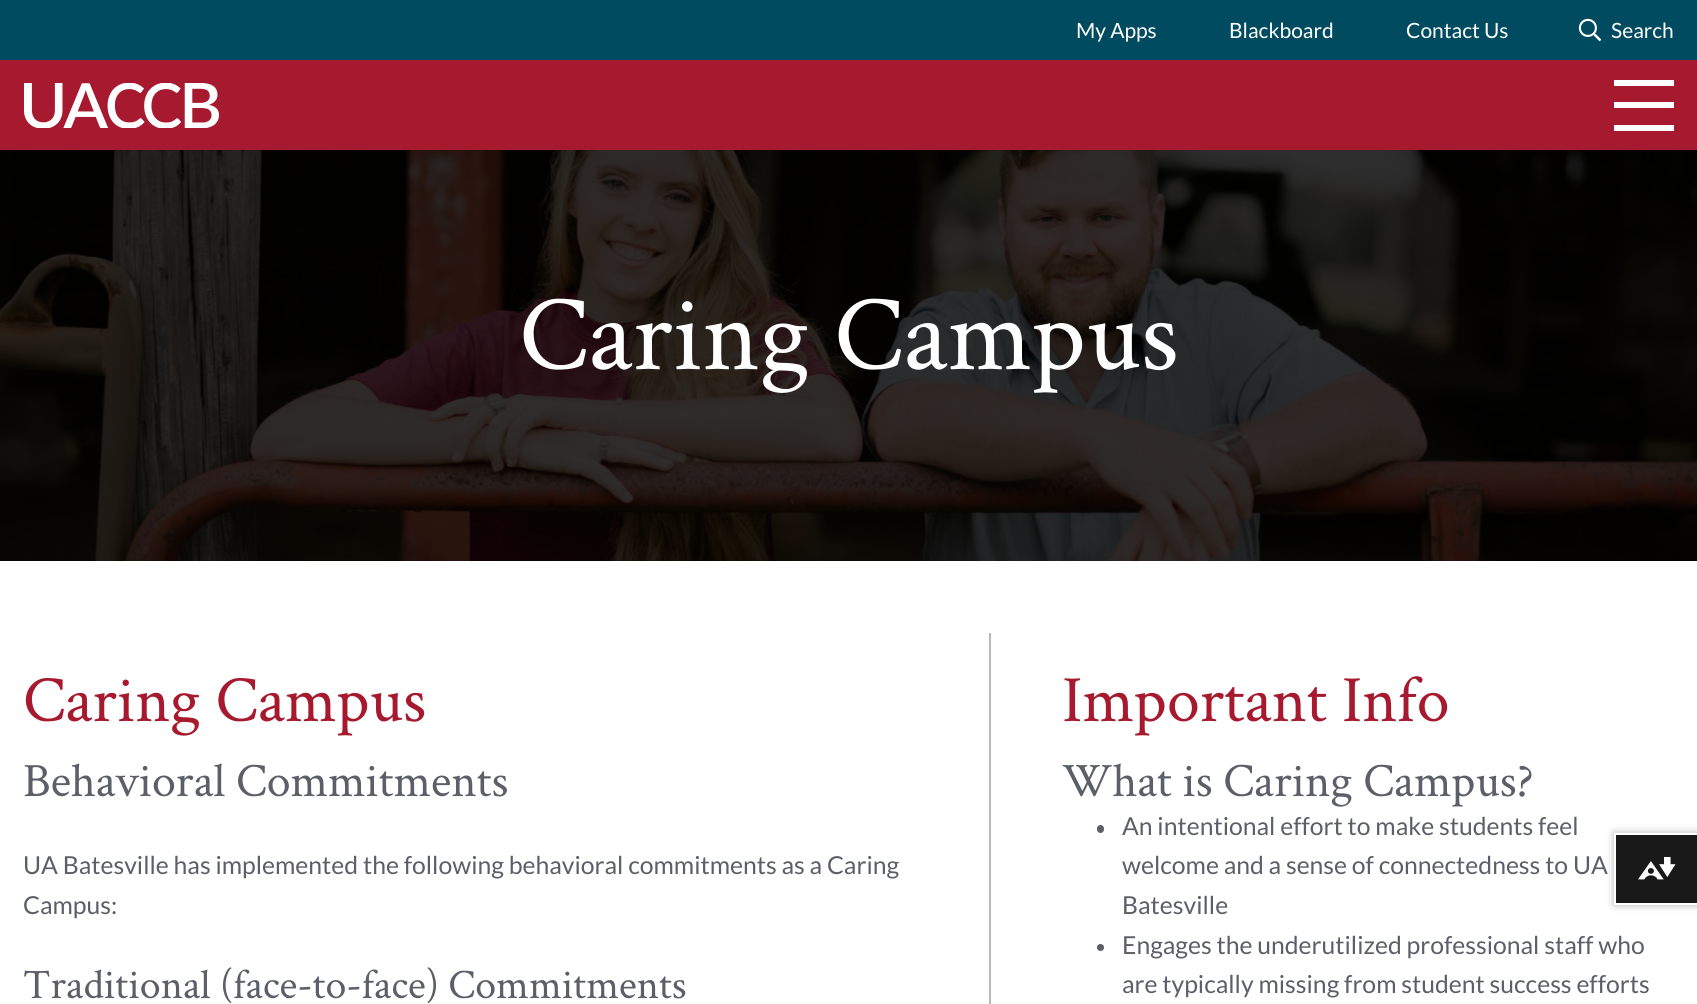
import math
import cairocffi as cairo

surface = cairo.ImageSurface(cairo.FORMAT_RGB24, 1697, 1004)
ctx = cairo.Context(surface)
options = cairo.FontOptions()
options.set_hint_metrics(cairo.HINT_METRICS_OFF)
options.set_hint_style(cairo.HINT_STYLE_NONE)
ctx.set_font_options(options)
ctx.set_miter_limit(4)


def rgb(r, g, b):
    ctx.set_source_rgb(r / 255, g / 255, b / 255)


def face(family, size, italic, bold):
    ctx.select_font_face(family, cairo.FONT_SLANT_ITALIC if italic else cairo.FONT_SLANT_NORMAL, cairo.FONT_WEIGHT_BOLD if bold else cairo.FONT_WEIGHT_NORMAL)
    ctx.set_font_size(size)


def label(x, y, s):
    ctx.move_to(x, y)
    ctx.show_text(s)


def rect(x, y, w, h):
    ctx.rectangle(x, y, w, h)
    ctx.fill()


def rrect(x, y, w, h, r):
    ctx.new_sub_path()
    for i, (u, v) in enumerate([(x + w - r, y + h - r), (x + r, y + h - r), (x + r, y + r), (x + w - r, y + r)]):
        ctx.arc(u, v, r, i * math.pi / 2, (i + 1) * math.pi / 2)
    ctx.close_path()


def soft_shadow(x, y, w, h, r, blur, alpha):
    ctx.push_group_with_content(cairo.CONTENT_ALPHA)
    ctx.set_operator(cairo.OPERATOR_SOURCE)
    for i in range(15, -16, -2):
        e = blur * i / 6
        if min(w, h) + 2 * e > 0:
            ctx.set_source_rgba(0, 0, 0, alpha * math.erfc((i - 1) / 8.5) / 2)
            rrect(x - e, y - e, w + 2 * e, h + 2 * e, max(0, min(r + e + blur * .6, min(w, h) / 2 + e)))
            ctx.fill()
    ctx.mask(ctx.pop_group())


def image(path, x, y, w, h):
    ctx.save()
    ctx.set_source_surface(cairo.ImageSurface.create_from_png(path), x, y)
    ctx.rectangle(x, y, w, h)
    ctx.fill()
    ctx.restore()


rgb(255, 255, 255)
ctx.paint()
rgb(0, 75, 96)
rect(0, 0, 1697, 60)
face('Lato', 21, 0, 0)
rgb(255, 255, 255)
label(1076, 38, 'My Apps')
label(1229, 38, 'Blackboard')
label(1406, 38, 'Contact Us')
image('image0.png', 1578, 18, 24, 24)
label(1611, 38, 'Search')
rgb(166, 25, 46)
rect(0, 60, 1697, 90)
image('image1.png', 24, 83, 195, 45)
rgb(255, 255, 255)
rect(1614, 80, 60, 6)
rect(1614, 102, 60, 6)
rect(1614, 125, 60, 6)
image('image2.png', 0, 150, 1697, 411)
face('Crimson Text', 108, 0, 0)
label(519, 369, 'Caring Campus')
rgb(185, 185, 185)
rect(989, 633, 2, 371)
face('Crimson Text', 66, 0, 0)
rgb(166, 25, 46)
label(23, 721, 'Caring Campus')
face('Crimson Text', 48, 0, 0)
rgb(91, 95, 104)
label(23, 796, 'Behavioral Commitments')
face('Lato', 24.75, 0, 0)
label(23, 874, 'UA Batesville has implemented the following behavioral commitments as a Caring')
label(23, 914, 'Campus:')
face('Crimson Text', 42, 0, 0)
label(23, 998, 'Traditional (face-to-face) Commitments')
face('Crimson Text', 66, 0, 0)
rgb(166, 25, 46)
label(1062, 721, 'Important Info')
face('Crimson Text', 48, 0, 0)
rgb(91, 95, 104)
label(1062, 796, 'What is Caring Campus?')
rrect(1097, 825, 7, 8, 3.5)
ctx.fill()
face('Lato', 24.75, 0, 0)
label(1122, 835, 'An intentional effort to make students feel')
label(1122, 874, 'welcome and a sense of connectedness to UA')
label(1122, 914, 'Batesville')
ctx.new_path()
ctx.arc(1100.5, 947.5, 3.5, 0, 2 * math.pi)
ctx.fill()
label(1122, 954, 'Engages the underutilized professional staff who')
label(1122, 993, 'are typically missing from student success efforts')
ctx.save()
ctx.set_fill_rule(cairo.FILL_RULE_EVEN_ODD)
ctx.new_path()
ctx.move_to(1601, 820)
ctx.line_to(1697, 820)
ctx.line_to(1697, 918)
ctx.line_to(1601, 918)
ctx.close_path()
ctx.move_to(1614, 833)
ctx.line_to(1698, 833)
ctx.line_to(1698, 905)
ctx.line_to(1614, 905)
ctx.close_path()
ctx.clip()
rgb(0, 0, 0)
soft_shadow(1614, 833, 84, 72, 0, 4, 0.3)
ctx.restore()
ctx.set_source_rgba(0, 0, 0, 0.9)
rect(1616, 835, 81, 68)
rgb(255, 255, 255)
rect(1614, 904, 83, 1)
image('image3.png', 1638, 857, 38, 23)
surface.write_to_png('render.png')
